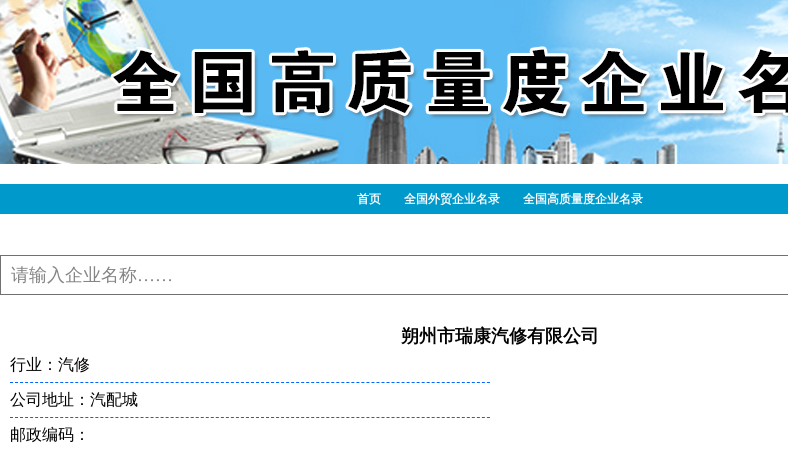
import math
import cairocffi as cairo

surface = cairo.ImageSurface(cairo.FORMAT_RGB24, 788, 451)
ctx = cairo.Context(surface)
options = cairo.FontOptions()
options.set_hint_metrics(cairo.HINT_METRICS_OFF)
options.set_hint_style(cairo.HINT_STYLE_NONE)
ctx.set_font_options(options)
ctx.set_miter_limit(4)


def rgb(r, g, b):
    ctx.set_source_rgb(r / 255, g / 255, b / 255)


def face(family, size, italic, bold):
    ctx.select_font_face(family, cairo.FONT_SLANT_ITALIC if italic else cairo.FONT_SLANT_NORMAL, cairo.FONT_WEIGHT_BOLD if bold else cairo.FONT_WEIGHT_NORMAL)
    ctx.set_font_size(size)


def label(x, y, s):
    ctx.move_to(x, y)
    ctx.show_text(s)


def rect(x, y, w, h):
    ctx.rectangle(x, y, w, h)
    ctx.fill()


def image(path, x, y, w, h):
    ctx.save()
    ctx.set_source_surface(cairo.ImageSurface.create_from_png(path), x, y)
    ctx.rectangle(x, y, w, h)
    ctx.fill()
    ctx.restore()


rgb(255, 255, 255)
ctx.paint()
image('image0.png', 0, 0, 788, 164)
rgb(0, 153, 204)
rect(0, 184, 788, 30)
face('WenQuanYi Zen Hei', 12, 0, 1)
rgb(255, 255, 255)
label(357, 203, '首页')
label(404, 203, '全国外贸企业名录')
label(523, 203, '全国高质量度企业名录')
ctx.rectangle(0.5, 255.5, 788, 39)
rgb(113, 113, 113)
ctx.set_line_width(1)
ctx.stroke()
face('WenQuanYi Zen Hei Medium', 18, 0, 0)
rgb(133, 133, 133)
label(11, 281, '请输入企业名称')
face('Liberation Serif', 18, 0, 0)
label(137, 281, '……')
face('WenQuanYi Zen Hei', 18, 0, 1)
rgb(0, 0, 0)
label(401, 342, '朔州市瑞康汽修有限公司')
ctx.new_path()
ctx.move_to(10, 382.5)
ctx.line_to(490, 382.5)
rgb(0, 102, 255)
ctx.set_dash([3, 2.02])
ctx.stroke()
face('WenQuanYi Zen Hei Medium', 16, 0, 0)
rgb(0, 0, 0)
label(10, 370, '行业：汽修')
ctx.new_path()
ctx.move_to(10, 417.5)
ctx.line_to(490, 417.5)
rgb(0, 102, 255)
ctx.stroke()
rgb(0, 0, 0)
label(10, 405, '公司地址：汽配城')
label(10, 440, '邮政编码：')
surface.write_to_png('render.png')
